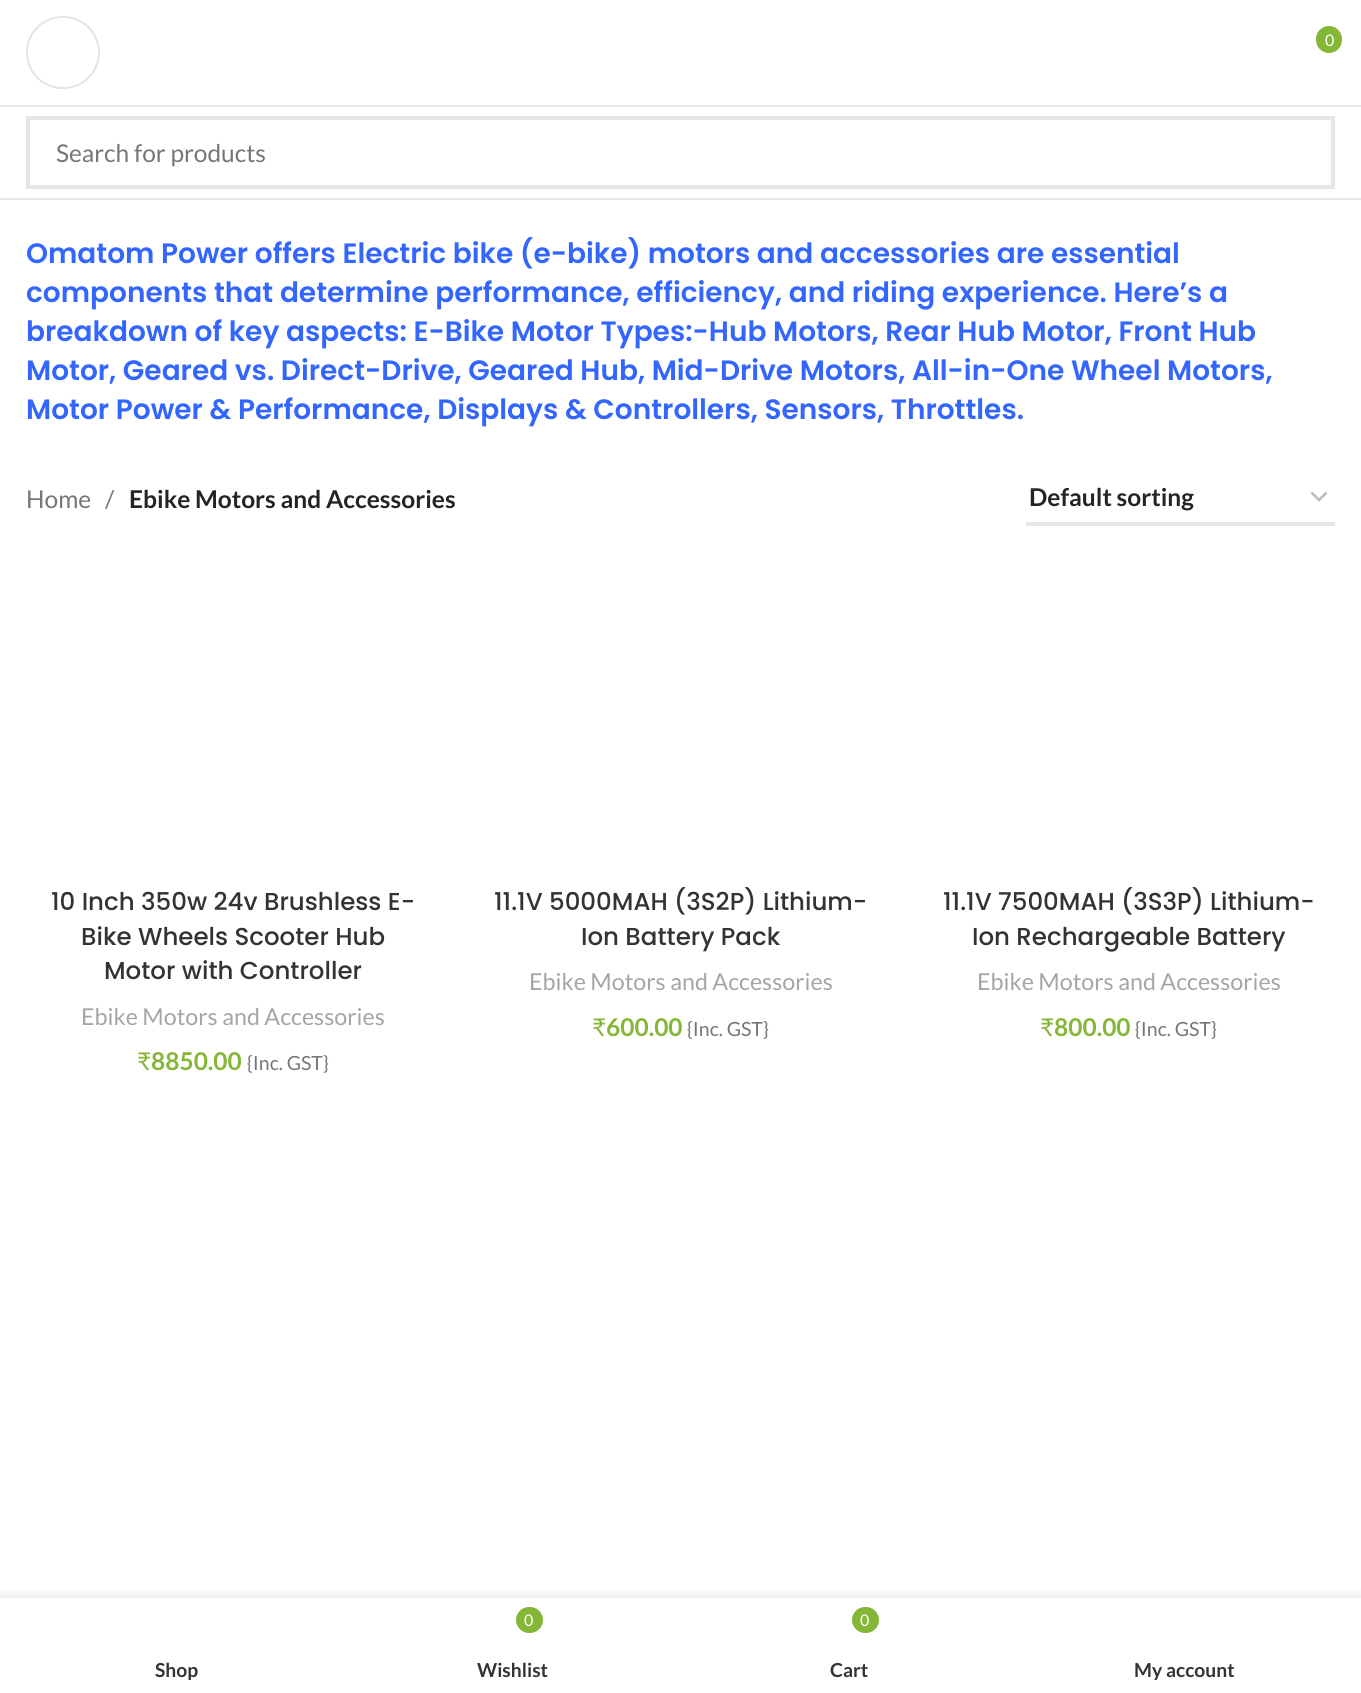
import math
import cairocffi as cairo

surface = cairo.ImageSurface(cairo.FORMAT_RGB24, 1361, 1693)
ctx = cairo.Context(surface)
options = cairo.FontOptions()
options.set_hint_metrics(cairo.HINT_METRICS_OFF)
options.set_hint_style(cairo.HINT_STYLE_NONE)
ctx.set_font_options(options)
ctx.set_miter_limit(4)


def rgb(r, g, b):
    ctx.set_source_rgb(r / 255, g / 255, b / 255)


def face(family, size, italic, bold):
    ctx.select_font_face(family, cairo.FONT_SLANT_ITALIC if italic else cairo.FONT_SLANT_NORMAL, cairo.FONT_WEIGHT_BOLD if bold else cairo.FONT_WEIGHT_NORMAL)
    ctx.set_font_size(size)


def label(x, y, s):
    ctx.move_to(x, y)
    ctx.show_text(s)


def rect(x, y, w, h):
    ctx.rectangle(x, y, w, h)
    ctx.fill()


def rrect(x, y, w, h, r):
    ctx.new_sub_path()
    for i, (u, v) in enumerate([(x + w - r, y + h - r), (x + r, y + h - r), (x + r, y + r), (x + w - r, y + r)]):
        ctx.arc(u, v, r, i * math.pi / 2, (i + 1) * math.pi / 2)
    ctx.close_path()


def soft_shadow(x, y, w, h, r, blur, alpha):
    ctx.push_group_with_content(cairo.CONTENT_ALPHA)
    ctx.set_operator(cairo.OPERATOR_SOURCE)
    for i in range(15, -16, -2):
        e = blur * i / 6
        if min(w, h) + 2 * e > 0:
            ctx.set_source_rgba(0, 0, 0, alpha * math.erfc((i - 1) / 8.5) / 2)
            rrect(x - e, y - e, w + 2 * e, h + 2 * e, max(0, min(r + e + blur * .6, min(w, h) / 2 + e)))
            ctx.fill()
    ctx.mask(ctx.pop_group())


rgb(255, 255, 255)
ctx.paint()
rgb(232, 232, 232)
rect(0, 105, 1361, 2)
rrect(27, 17, 72, 71, 35.5)
rgb(228, 228, 228)
ctx.stroke()
rgb(131, 183, 53)
rrect(1316, 26, 26, 27, 13)
ctx.fill()
face('Lato', 16, 0, 0)
rgb(255, 255, 255)
label(1325, 46, '0')
rgb(232, 232, 232)
rect(0, 198, 1361, 2)
ctx.rectangle(28, 118, 1305, 69)
rgb(230, 230, 230)
ctx.set_line_width(4)
ctx.stroke()
face('Lato', 24.5, 0, 0)
rgb(118, 118, 118)
label(56, 162, 'Search for products')
face('Poppins SemiBold', 28, 0, 0)
rgb(51, 102, 255)
label(26, 263, 'Omatom Power offers Electric bike (e-bike) motors and accessories are essential')
label(26, 302, 'components that determine performance, efficiency, and riding experience. Here’s a')
label(26, 341, 'breakdown of key aspects: E-Bike Motor Types:-Hub Motors, Rear Hub Motor, Front Hub')
label(26, 380, 'Motor, Geared vs. Direct-Drive, Geared Hub, Mid-Drive Motors, All-in-One Wheel Motors,')
label(26, 419, 'Motor Power & Performance, Displays & Controllers, Sensors, Throttles.')
face('Lato', 24.5, 0, 0)
rgb(118, 118, 118)
label(26, 508, 'Home')
label(105, 508, '/')
face('Lato', 24.5, 0, 1)
rgb(36, 36, 36)
label(129, 508, 'Ebike Motors and Accessories')
ctx.new_path()
ctx.move_to(1311.5, 492.5)
ctx.line_to(1319, 500)
ctx.line_to(1326.5, 492.5)
rgb(187, 187, 187)
ctx.set_line_width(2.5)
ctx.stroke()
rgb(230, 230, 230)
rect(1026, 522, 309, 4)
rgb(36, 36, 36)
label(1029, 506, 'Default sorting')
face('Poppins Medium', 24.5, 0, 0)
rgb(51, 51, 51)
label(51, 910, '10 Inch 350w 24v Brushless E-')
label(81, 945, 'Bike Wheels Scooter Hub')
label(104, 979, 'Motor with Controller')
face('Lato', 23.25, 0, 0)
rgb(165, 165, 165)
label(81, 1025, 'Ebike Motors and Accessories')
face('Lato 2', 24.5, 0, 0)
rgb(131, 183, 53)
label(137, 1070, '₹')
face('Lato', 24.5, 0, 1)
label(151, 1070, '8850.00')
face('Lato', 19.5, 0, 0)
rgb(118, 118, 118)
label(247, 1070, '{Inc. GST}')
face('Poppins Medium', 24.5, 0, 0)
rgb(51, 51, 51)
label(494, 910, '11.1V 5000MAH (3S2P) Lithium-')
label(581, 945, 'Ion Battery Pack')
face('Lato', 23.25, 0, 0)
rgb(165, 165, 165)
label(529, 990, 'Ebike Motors and Accessories')
face('Lato 2', 24.5, 0, 0)
rgb(131, 183, 53)
label(592, 1036, '₹')
face('Lato', 24.5, 0, 1)
label(606, 1036, '600.00')
face('Lato', 19.5, 0, 0)
rgb(118, 118, 118)
label(687, 1036, '{Inc. GST}')
face('Poppins Medium', 24.5, 0, 0)
rgb(51, 51, 51)
label(943, 910, '11.1V 7500MAH (3S3P) Lithium-')
label(972, 945, 'Ion Rechargeable Battery')
face('Lato', 23.25, 0, 0)
rgb(165, 165, 165)
label(977, 990, 'Ebike Motors and Accessories')
face('Lato 2', 24.5, 0, 0)
rgb(131, 183, 53)
label(1040, 1036, '₹')
face('Lato', 24.5, 0, 1)
label(1054, 1036, '800.00')
face('Lato', 19.5, 0, 0)
rgb(118, 118, 118)
label(1135, 1036, '{Inc. GST}')
ctx.save()
ctx.rectangle(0, 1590, 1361, 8)
ctx.clip()
rgb(0, 0, 0)
soft_shadow(0, 1598, 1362, 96, 0, 8, 0.12)
ctx.restore()
ctx.save()
ctx.rectangle(26, 1657, 301, 23)
ctx.clip()
face('Lato', 19.25, 0, 1)
rgb(51, 51, 51)
label(155, 1677, 'Shop')
ctx.restore()
rgb(131, 183, 53)
rrect(516, 1607, 27, 26, 13)
ctx.fill()
face('Lato', 16, 0, 0)
rgb(255, 255, 255)
label(524, 1626, '0')
face('Lato', 19.25, 0, 1)
rgb(51, 51, 51)
label(477, 1677, 'Wishlist')
rgb(131, 183, 53)
rrect(852, 1607, 27, 26, 13)
ctx.fill()
face('Lato', 16, 0, 0)
rgb(255, 255, 255)
label(860, 1626, '0')
face('Lato', 19.25, 0, 1)
rgb(51, 51, 51)
label(830, 1677, 'Cart')
ctx.save()
ctx.rectangle(1034, 1657, 301, 23)
ctx.clip()
label(1134, 1677, 'My account')
ctx.restore()
surface.write_to_png('render.png')
